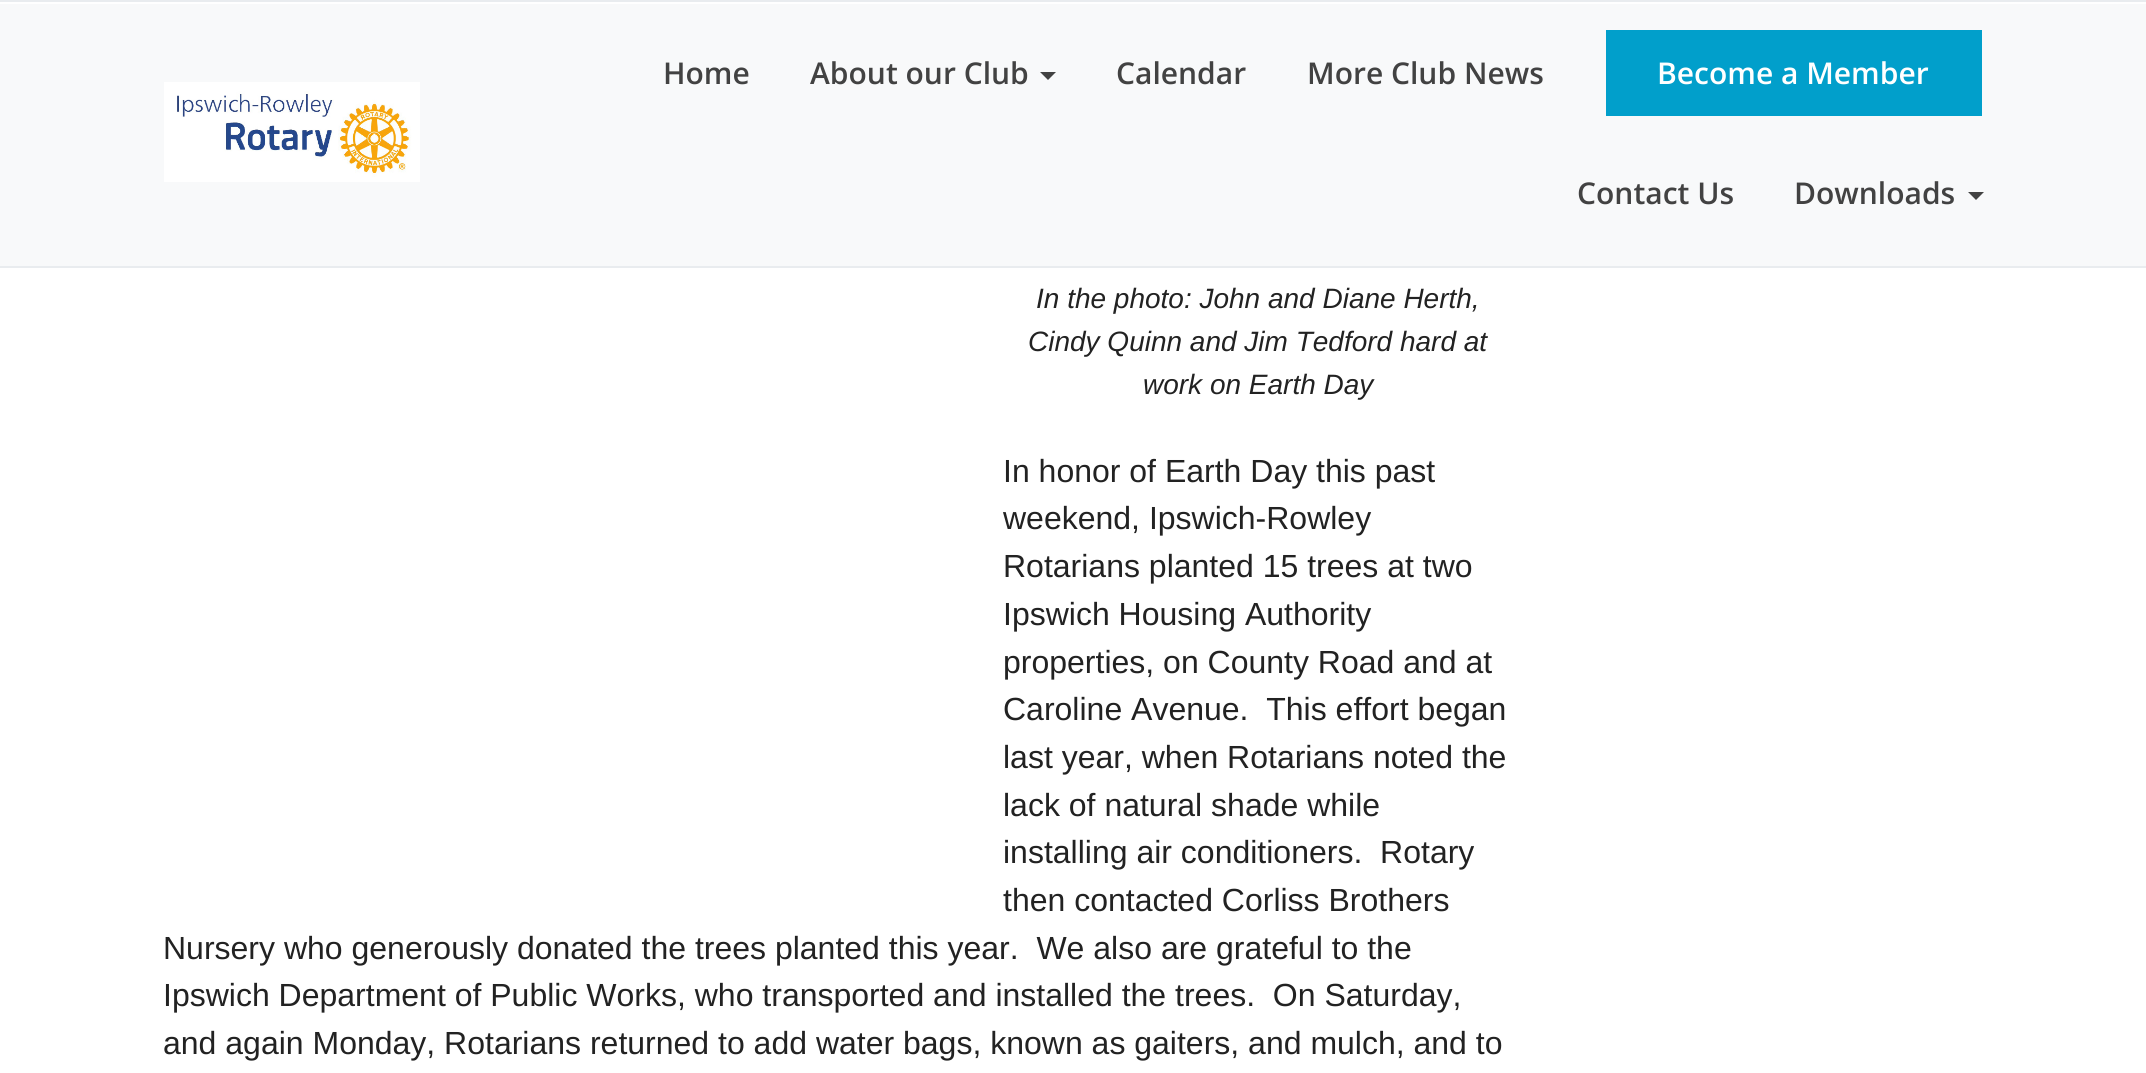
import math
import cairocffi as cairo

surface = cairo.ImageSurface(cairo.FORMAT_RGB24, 2146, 1073)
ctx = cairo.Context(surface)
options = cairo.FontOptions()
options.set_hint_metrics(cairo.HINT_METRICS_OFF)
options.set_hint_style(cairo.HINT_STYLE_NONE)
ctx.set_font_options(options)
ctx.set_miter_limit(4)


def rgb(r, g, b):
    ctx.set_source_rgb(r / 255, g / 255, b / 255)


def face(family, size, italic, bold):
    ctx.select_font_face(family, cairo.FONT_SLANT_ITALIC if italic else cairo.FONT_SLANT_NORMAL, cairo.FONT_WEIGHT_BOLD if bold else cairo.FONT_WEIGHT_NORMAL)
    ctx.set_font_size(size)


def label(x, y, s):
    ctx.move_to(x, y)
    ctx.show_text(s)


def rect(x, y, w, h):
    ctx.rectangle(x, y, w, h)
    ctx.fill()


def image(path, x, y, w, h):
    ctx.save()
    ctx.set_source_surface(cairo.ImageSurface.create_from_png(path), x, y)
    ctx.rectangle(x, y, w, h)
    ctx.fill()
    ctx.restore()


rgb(255, 255, 255)
ctx.paint()
rgb(233, 236, 239)
rect(0, 0, 2146, 2)
rgb(248, 249, 250)
rect(0, 4, 2146, 262)
rgb(233, 236, 239)
rect(0, 266, 2146, 2)
image('image0.png', 164, 82, 256, 100)
face('Open Sans SemiBold', 30, 0, 0)
rgb(66, 66, 66)
label(663, 84, 'Home')
label(810, 84, 'About our Club')
ctx.new_path()
ctx.move_to(1040, 72)
ctx.line_to(1056, 72)
ctx.line_to(1048, 80)
ctx.close_path()
ctx.fill()
label(1116, 84, 'Calendar')
label(1307, 84, 'More Club News')
rgb(1, 159, 203)
rect(1606, 30, 376, 86)
rgb(255, 255, 255)
label(1657, 84, 'Become a Member')
rgb(66, 66, 66)
label(1577, 204, 'Contact Us')
label(1794, 204, 'Downloads')
ctx.new_path()
ctx.move_to(1968, 192)
ctx.line_to(1984, 192)
ctx.line_to(1976, 200)
ctx.close_path()
ctx.fill()
face('Liberation Sans', 28, 1, 0)
rgb(34, 34, 34)
label(1036, 308, 'In the photo: John and Diane Herth,')
label(1028, 351, 'Cindy Quinn and Jim Tedford hard at')
label(1143, 394, 'work on Earth Day')
face('Liberation Sans', 32, 0, 0)
label(1003, 482, 'In honor of Earth Day this past')
label(1003, 529, 'weekend, Ipswich-Rowley')
label(1003, 577, 'Rotarians planted 15 trees at two')
label(1003, 625, 'Ipswich Housing Authority')
label(1003, 673, 'properties, on County Road and at')
label(1003, 720, 'Caroline Avenue.  This effort began')
label(1003, 768, 'last year, when Rotarians noted the')
label(1003, 816, 'lack of natural shade while')
label(1003, 863, 'installing air conditioners.  Rotary')
label(1003, 911, 'then contacted Corliss Brothers')
label(163, 959, 'Nursery who generously donated the trees planted this year.  We also are grateful to the')
label(163, 1006, 'Ipswich Department of Public Works, who transported and installed the trees.  On Saturday,')
label(163, 1054, 'and again Monday, Rotarians returned to add water bags, known as gaiters, and mulch, and to')
surface.write_to_png('render.png')
